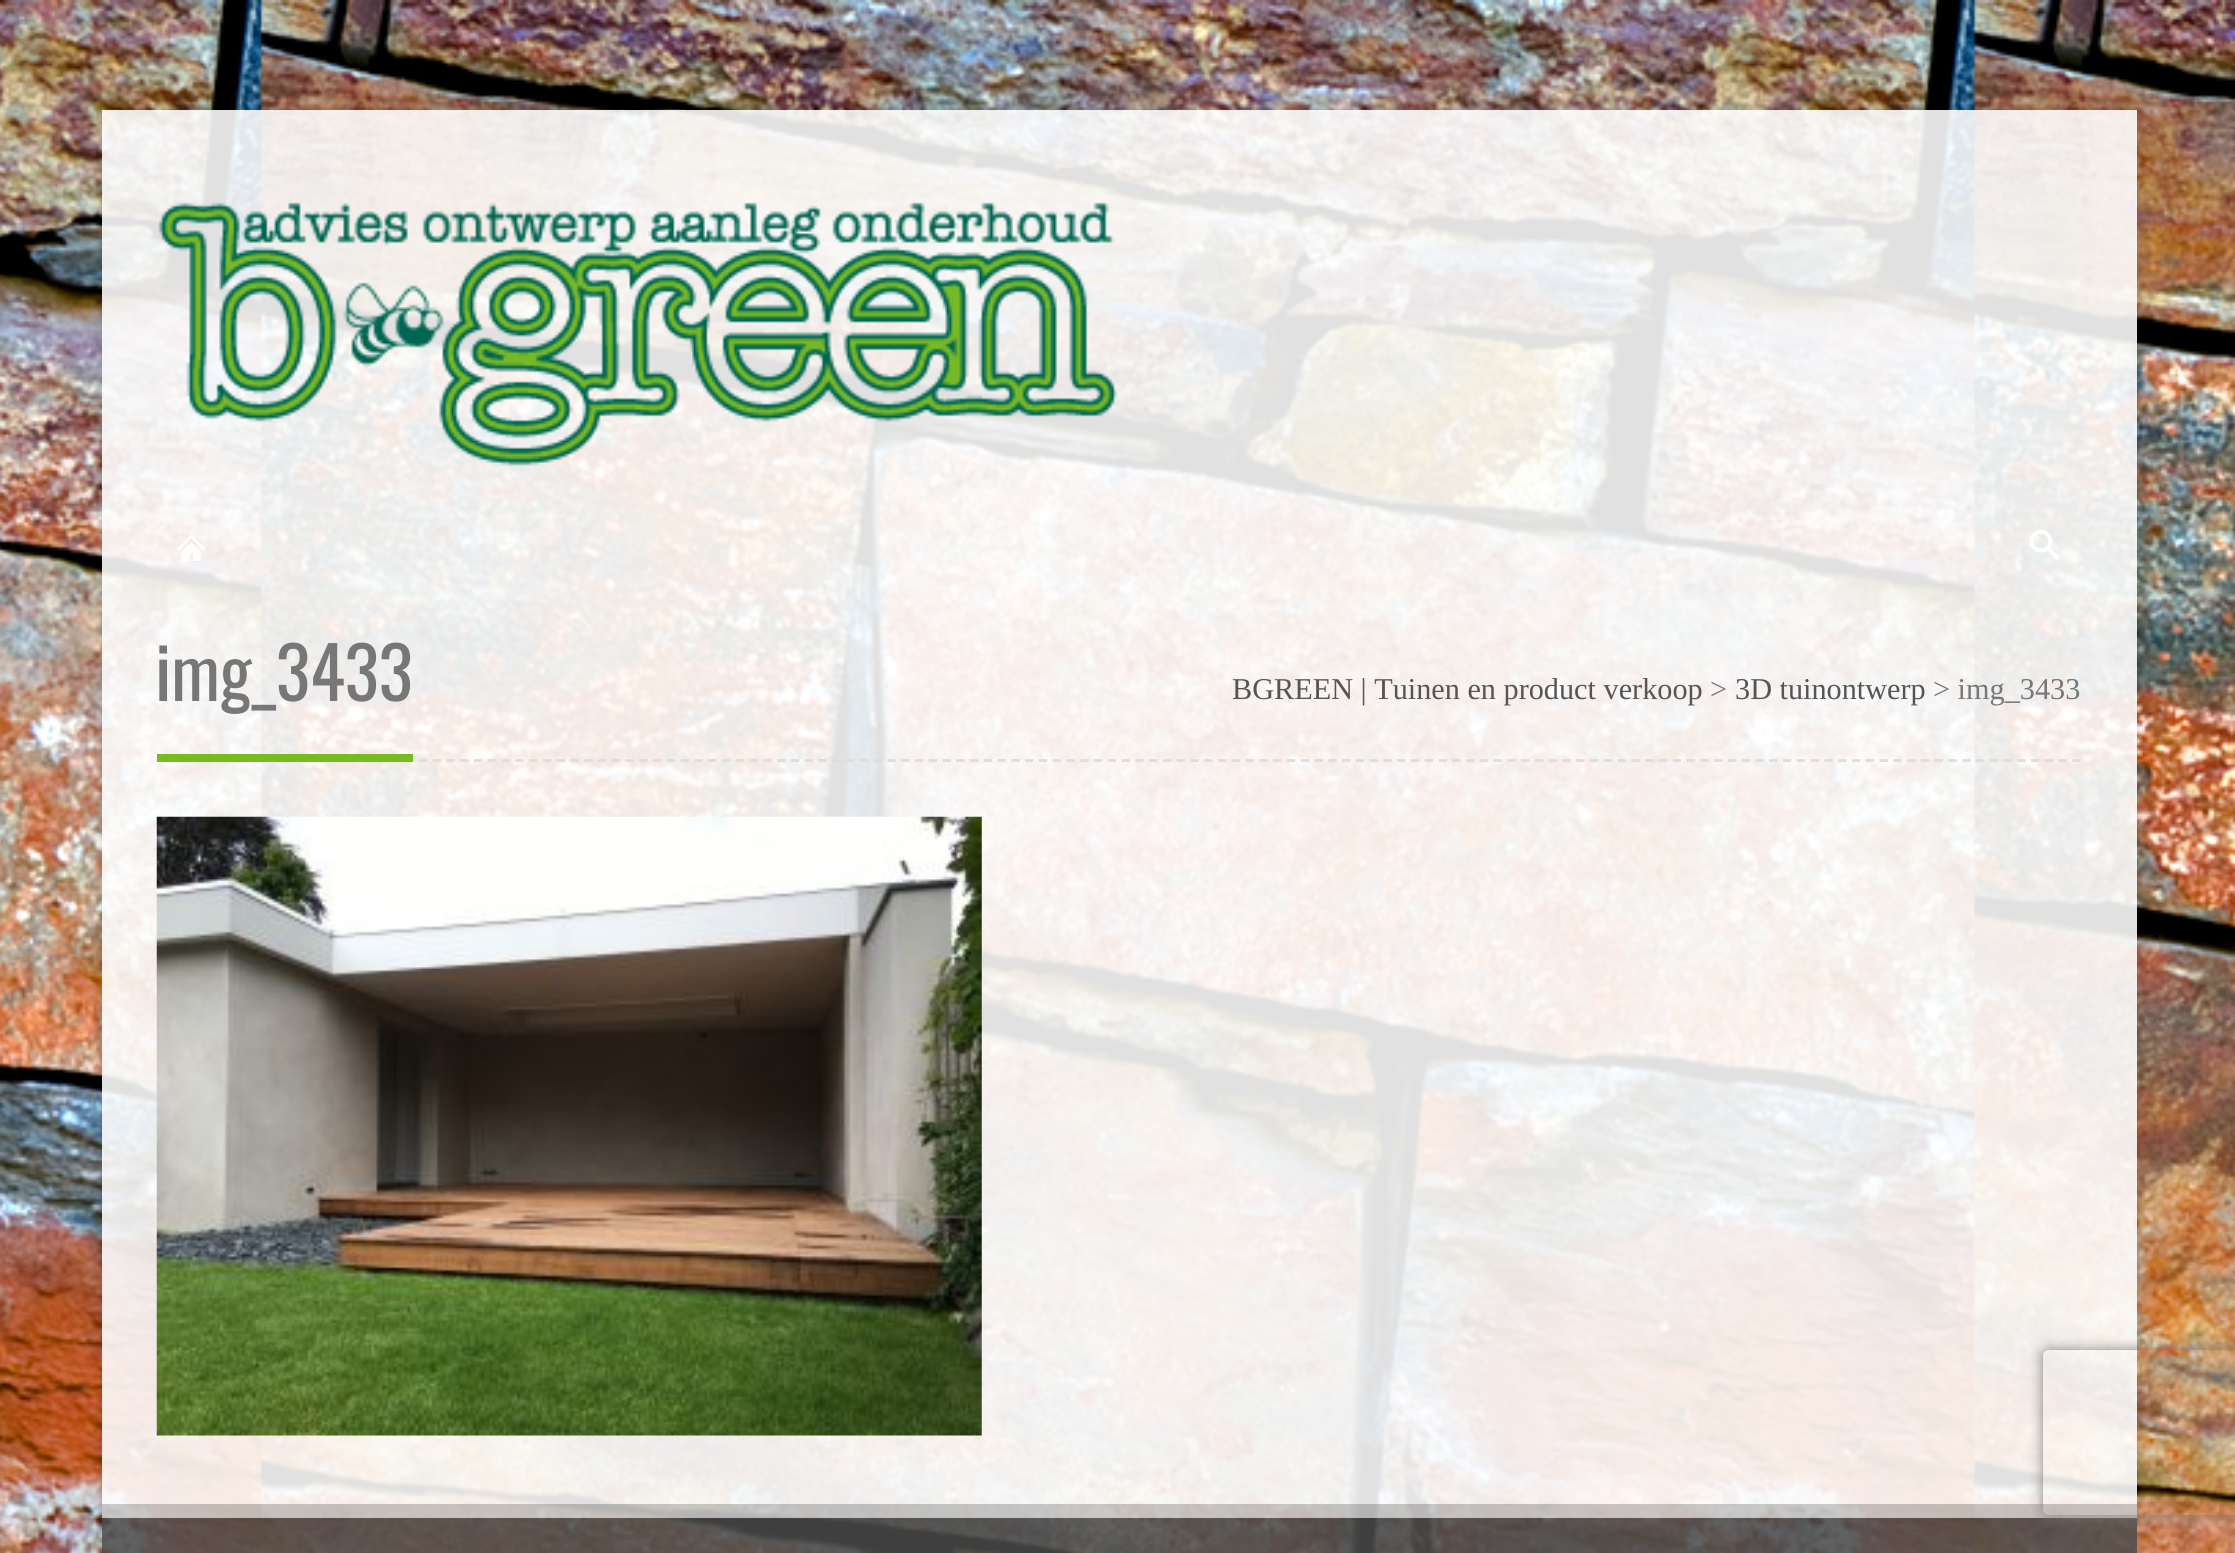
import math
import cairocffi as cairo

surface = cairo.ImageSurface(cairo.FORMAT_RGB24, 2235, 1553)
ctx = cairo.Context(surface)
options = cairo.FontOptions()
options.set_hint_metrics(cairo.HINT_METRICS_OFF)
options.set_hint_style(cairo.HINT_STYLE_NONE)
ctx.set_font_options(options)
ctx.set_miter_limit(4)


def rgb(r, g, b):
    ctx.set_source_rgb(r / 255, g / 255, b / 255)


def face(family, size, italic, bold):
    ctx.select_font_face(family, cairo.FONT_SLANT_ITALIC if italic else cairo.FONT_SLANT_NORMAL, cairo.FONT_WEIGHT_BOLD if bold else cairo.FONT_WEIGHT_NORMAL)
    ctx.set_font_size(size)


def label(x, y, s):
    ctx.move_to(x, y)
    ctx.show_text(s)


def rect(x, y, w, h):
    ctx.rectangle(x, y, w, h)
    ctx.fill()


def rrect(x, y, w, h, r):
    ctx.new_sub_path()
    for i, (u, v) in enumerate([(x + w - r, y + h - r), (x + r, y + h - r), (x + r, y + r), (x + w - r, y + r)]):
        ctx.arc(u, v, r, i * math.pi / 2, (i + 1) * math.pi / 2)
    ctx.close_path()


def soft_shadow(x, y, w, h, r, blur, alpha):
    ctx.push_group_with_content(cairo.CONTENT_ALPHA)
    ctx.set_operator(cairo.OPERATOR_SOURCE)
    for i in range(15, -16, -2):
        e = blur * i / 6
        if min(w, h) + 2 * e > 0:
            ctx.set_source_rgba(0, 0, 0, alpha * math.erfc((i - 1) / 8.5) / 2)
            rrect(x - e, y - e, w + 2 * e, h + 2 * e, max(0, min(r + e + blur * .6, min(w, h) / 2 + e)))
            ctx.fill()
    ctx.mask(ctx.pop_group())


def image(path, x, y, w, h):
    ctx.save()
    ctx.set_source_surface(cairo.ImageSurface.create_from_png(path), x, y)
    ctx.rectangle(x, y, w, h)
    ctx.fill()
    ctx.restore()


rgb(255, 255, 255)
ctx.paint()
image('image0.png', 0, 0, 2235, 1553)
ctx.save()
ctx.set_fill_rule(cairo.FILL_RULE_EVEN_ODD)
ctx.new_path()
ctx.move_to(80, 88)
ctx.line_to(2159, 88)
ctx.line_to(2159, 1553)
ctx.line_to(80, 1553)
ctx.close_path()
ctx.move_to(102, 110)
ctx.line_to(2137, 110)
ctx.line_to(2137, 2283)
ctx.line_to(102, 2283)
ctx.close_path()
ctx.clip()
rgb(0, 0, 0)
soft_shadow(102, 110, 2035, 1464, 0, 7, 0.2)
ctx.restore()
ctx.set_source_rgba(1, 1, 1, 0.88)
rect(102, 110, 2035, 1408)
ctx.set_source_rgba(0, 0, 0, 0.2)
rect(102, 1504, 2035, 14)
image('image1.png', 158, 202, 960, 264)
image('image2.png', 176, 535, 30, 26)
image('image3.png', 2029, 530, 31, 30)
ctx.new_path()
ctx.move_to(157, 760.5)
ctx.line_to(2082, 760.5)
rgb(221, 221, 221)
ctx.set_line_width(2.8)
ctx.set_dash([8.25, 5.53])
ctx.stroke()
rgb(119, 188, 31)
rect(157, 754, 256, 8)
face('Oswald', 71.5, 0, 0)
rgb(119, 119, 119)
label(155, 701, 'img_3433')
face('Liberation Serif', 30.25, 0, 0)
rgb(85, 85, 85)
label(1232, 699, 'BGREEN | Tuinen en product verkoop')
rgb(119, 119, 119)
label(1710, 699, '>')
rgb(85, 85, 85)
label(1735, 699, '3D tuinontwerp')
rgb(119, 119, 119)
label(1933, 699, '> img_3433')
image('image4.png', 156, 816, 826, 620)
ctx.set_source_rgba(0.29, 0.29, 0.29, 0.85)
rect(102, 1518, 2035, 35)
ctx.save()
ctx.set_fill_rule(cairo.FILL_RULE_EVEN_ODD)
ctx.new_path()
ctx.move_to(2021, 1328)
ctx.line_to(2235, 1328)
ctx.line_to(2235, 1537)
ctx.line_to(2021, 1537)
ctx.close_path()
ctx.move_to(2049, 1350)
ctx.line_to(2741, 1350)
ctx.curve_to(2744.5, 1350, 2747, 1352.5, 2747, 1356)
ctx.line_to(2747, 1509)
ctx.curve_to(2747, 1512.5, 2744.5, 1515, 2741, 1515)
ctx.line_to(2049, 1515)
ctx.curve_to(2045.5, 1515, 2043, 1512.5, 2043, 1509)
ctx.line_to(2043, 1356)
ctx.curve_to(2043, 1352.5, 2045.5, 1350, 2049, 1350)
ctx.close_path()
ctx.clip()
rgb(128, 128, 128)
soft_shadow(2043, 1350, 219, 165, 6, 7, 1)
ctx.restore()
surface.write_to_png('render.png')
